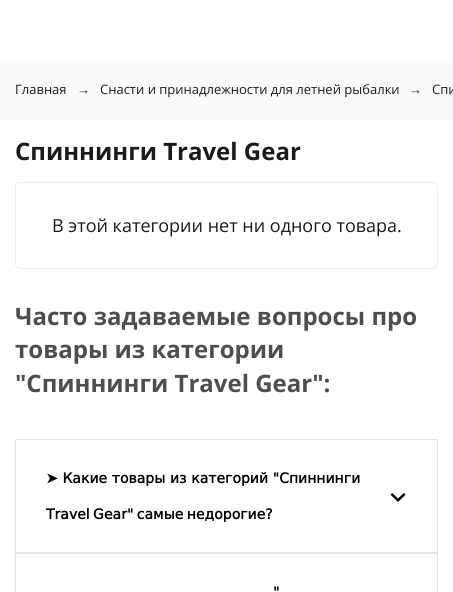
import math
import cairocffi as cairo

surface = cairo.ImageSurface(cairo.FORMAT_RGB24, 453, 592)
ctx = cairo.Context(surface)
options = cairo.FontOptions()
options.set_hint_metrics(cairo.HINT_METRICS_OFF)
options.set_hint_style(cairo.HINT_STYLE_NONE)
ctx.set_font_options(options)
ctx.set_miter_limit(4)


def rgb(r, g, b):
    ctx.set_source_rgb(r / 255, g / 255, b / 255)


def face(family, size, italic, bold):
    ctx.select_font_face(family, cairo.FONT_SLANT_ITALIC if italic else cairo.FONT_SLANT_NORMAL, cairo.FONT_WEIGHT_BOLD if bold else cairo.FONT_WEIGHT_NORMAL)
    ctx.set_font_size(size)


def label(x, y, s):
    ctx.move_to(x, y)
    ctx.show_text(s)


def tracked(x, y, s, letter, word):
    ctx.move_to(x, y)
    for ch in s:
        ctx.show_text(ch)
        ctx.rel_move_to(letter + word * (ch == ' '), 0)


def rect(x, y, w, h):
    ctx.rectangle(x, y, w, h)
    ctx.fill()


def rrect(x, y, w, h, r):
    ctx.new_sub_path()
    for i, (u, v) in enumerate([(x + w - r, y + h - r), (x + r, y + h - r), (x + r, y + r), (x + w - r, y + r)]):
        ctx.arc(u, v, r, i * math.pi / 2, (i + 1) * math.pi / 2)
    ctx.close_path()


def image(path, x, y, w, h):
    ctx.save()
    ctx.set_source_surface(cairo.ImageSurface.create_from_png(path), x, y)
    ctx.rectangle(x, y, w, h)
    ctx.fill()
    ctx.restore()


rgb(255, 255, 255)
ctx.paint()
rgb(250, 250, 250)
rect(0, 60, 453, 60)
face('Open Sans', 13, 0, 0)
rgb(27, 27, 27)
label(15, 94, 'Главная')
face('Liberation Sans', 13, 0, 0)
label(77, 94, '→')
face('Open Sans', 13, 0, 0)
label(100, 94, 'Снасти и принадлежности для летней рыбалки')
face('Liberation Sans', 13, 0, 0)
label(409, 94, '→')
face('Open Sans', 13, 0, 0)
label(432, 94, 'Спи')
face('Open Sans', 24, 0, 1)
label(15, 160, 'Спиннинги Travel Gear')
rrect(15.5, 182.5, 422, 86, 4.5)
rgb(238, 238, 238)
ctx.set_line_width(1)
ctx.stroke()
face('Open Sans', 18, 0, 0)
rgb(27, 27, 27)
label(52, 232, 'В этой категории нет ни одного товара.')
face('Open Sans', 24, 0, 1)
rgb(78, 78, 78)
label(15, 325, 'Часто задаваемые вопросы про')
label(15, 358, 'товары из категории')
label(15, 392, '"Спиннинги Travel Gear":')
ctx.rectangle(15.5, 439.5, 422, 113)
rgb(229, 229, 229)
ctx.stroke()
face('DejaVu Sans', 14, 0, 1)
rgb(0, 0, 0)
tracked(46, 483, '➤ Какие товары из категорий "Спиннинги', 0, 0.25)
tracked(46, 519, 'Travel Gear" самые недорогие?', 0, -1)
image('image0.png', 390, 493, 16, 9)
ctx.rectangle(15.5, 553.5, 422, 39)
rgb(229, 229, 229)
ctx.stroke()
rgb(0, 0, 0)
tracked(273, 597, '"', 0, 0.25)
surface.write_to_png('render.png')
